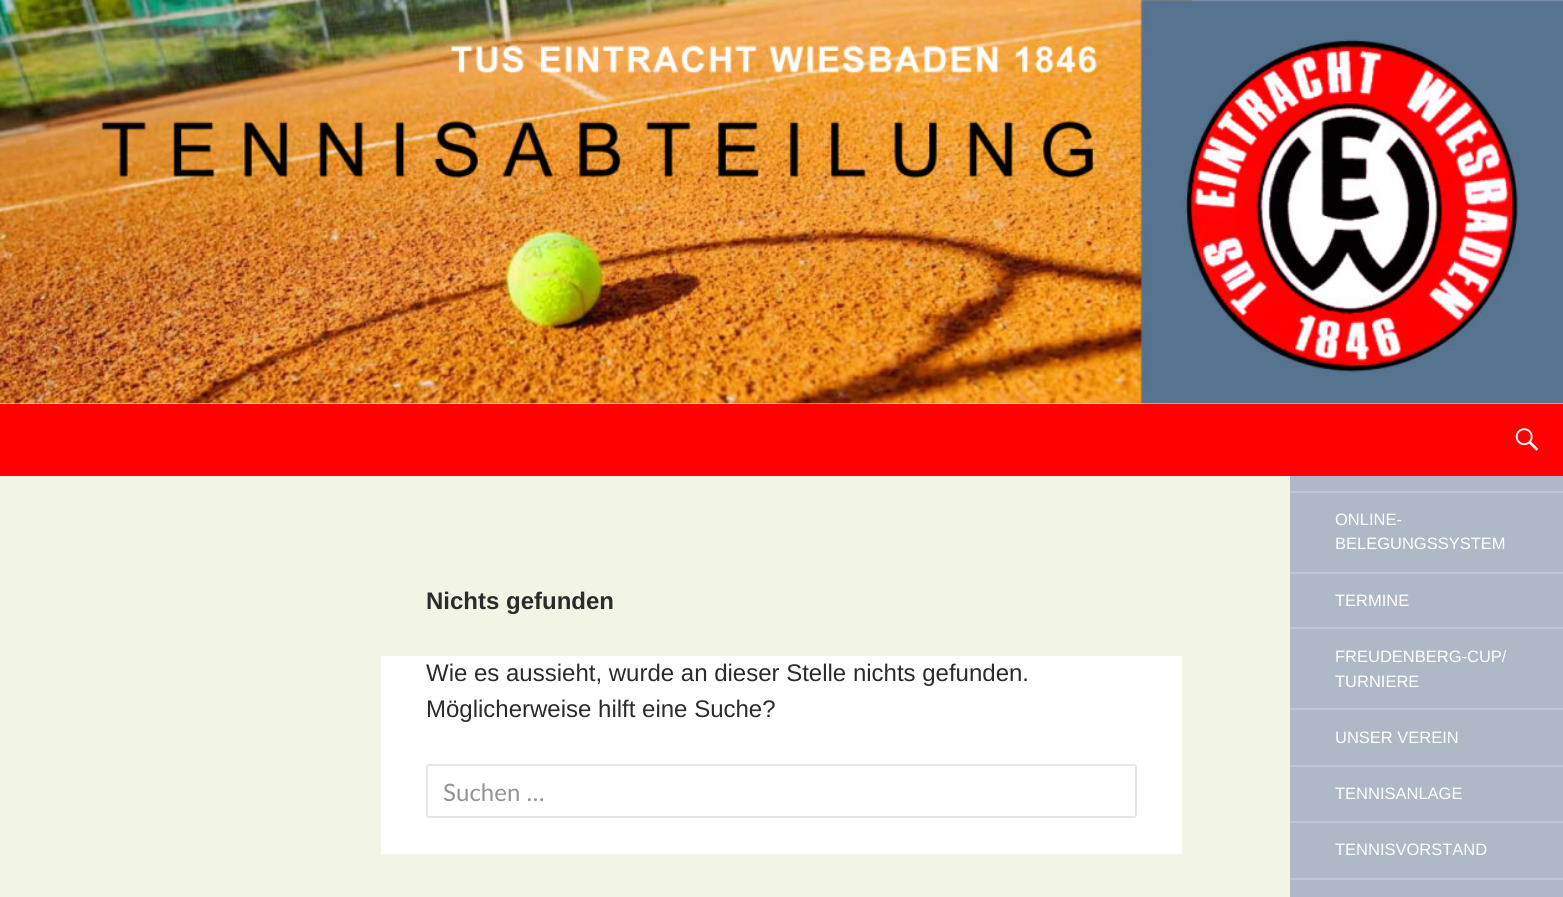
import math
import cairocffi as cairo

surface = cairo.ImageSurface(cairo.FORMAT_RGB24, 1563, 897)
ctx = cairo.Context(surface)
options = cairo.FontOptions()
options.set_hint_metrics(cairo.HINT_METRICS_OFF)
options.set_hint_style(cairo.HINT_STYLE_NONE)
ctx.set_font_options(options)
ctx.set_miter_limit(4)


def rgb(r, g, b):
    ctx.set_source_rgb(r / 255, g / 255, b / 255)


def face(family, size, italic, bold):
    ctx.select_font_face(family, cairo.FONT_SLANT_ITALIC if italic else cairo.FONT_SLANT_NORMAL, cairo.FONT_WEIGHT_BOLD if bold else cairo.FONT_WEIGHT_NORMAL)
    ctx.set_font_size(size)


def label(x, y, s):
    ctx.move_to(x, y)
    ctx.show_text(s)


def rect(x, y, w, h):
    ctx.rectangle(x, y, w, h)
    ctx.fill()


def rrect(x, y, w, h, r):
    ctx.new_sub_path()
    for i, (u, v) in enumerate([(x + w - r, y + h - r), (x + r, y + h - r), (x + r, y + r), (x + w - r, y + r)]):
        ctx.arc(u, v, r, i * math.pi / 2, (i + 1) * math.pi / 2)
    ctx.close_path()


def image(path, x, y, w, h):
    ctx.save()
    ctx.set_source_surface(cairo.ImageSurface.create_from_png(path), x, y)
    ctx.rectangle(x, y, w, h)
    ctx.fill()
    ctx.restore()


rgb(242, 244, 230)
ctx.paint()
image('image0.png', 0, 0, 1563, 404)
rgb(255, 1, 2)
rect(0, 404, 1563, 72)
image('image1.png', 1515, 428, 24, 23)
face('Liberation Sans', 24, 0, 1)
rgb(43, 43, 43)
label(426, 609, 'Nichts gefunden')
rgb(255, 255, 255)
rect(381, 656, 801, 198)
face('Liberation Sans', 24, 0, 0)
rgb(43, 43, 43)
label(426, 681, 'Wie es aussieht, wurde an dieser Stelle nichts gefunden.')
label(426, 717, 'Möglicherweise hilft eine Suche?')
rrect(427, 765, 709, 52, 2)
rgb(230, 230, 230)
ctx.stroke()
face('Lato', 24, 0, 0)
rgb(147, 147, 147)
label(443, 801, 'Suchen …')
rgb(174, 184, 199)
rect(1290, 476, 273, 421)
rgb(190, 198, 210)
rect(1290, 491, 273, 2)
face('Liberation Sans', 16.5, 0, 0)
rgb(255, 255, 255)
label(1335, 525, 'ONLINE-')
label(1335, 549, 'BELEGUNGSSYSTEM')
rgb(190, 198, 210)
rect(1290, 572, 273, 2)
rgb(255, 255, 255)
label(1335, 606, 'TERMINE')
rgb(190, 198, 210)
rect(1290, 627, 273, 2)
rgb(255, 255, 255)
label(1335, 662, 'FREUDENBERG-CUP/')
label(1335, 687, 'TURNIERE')
rgb(190, 198, 210)
rect(1290, 708, 273, 2)
rgb(255, 255, 255)
label(1335, 743, 'UNSER VEREIN')
rgb(190, 198, 210)
rect(1290, 765, 273, 2)
rgb(255, 255, 255)
label(1335, 799, 'TENNISANLAGE')
rgb(190, 198, 210)
rect(1290, 821, 273, 2)
rgb(255, 255, 255)
label(1335, 855, 'TENNISVORSTAND')
rgb(190, 198, 210)
rect(1290, 878, 273, 2)
surface.write_to_png('render.png')
